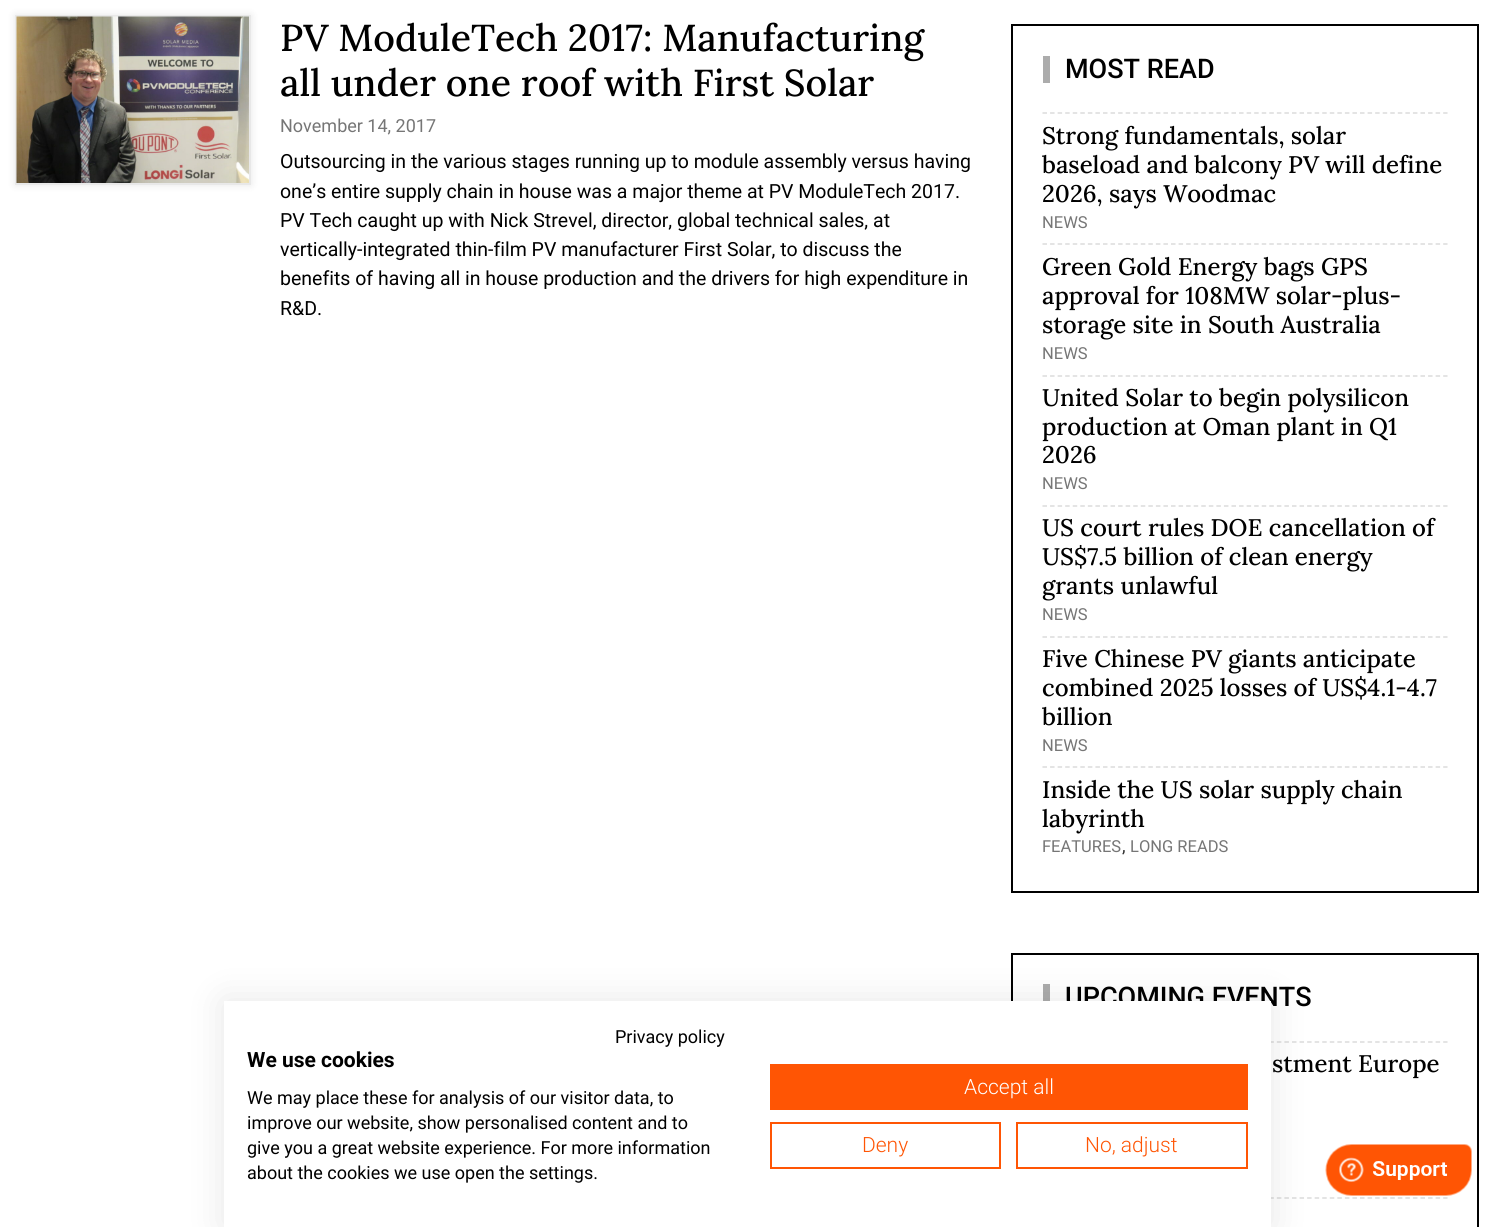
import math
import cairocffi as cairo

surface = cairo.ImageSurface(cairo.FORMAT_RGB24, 1493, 1227)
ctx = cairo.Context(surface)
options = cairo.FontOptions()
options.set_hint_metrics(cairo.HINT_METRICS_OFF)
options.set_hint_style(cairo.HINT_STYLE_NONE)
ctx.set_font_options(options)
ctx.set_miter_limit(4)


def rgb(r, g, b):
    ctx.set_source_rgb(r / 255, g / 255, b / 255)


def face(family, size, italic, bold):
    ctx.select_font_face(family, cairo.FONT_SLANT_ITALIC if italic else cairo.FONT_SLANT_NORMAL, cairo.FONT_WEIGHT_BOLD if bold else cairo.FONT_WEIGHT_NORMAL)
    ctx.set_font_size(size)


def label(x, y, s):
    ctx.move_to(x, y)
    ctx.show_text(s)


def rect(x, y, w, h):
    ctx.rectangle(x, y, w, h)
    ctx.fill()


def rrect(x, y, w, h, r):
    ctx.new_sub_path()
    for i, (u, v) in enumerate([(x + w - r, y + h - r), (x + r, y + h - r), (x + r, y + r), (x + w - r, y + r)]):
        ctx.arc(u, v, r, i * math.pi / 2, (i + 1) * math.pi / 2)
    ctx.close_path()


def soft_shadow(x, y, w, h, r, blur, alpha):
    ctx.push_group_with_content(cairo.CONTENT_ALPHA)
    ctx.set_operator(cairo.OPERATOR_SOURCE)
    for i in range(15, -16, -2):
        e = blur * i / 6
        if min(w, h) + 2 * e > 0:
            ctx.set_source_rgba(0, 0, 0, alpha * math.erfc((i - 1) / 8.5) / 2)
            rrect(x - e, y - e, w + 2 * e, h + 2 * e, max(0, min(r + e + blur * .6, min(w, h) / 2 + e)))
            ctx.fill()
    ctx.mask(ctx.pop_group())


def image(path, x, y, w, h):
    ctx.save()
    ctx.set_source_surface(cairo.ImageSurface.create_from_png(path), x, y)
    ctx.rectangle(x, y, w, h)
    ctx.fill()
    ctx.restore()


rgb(255, 255, 255)
ctx.paint()
rgb(0, 0, 0)
soft_shadow(15, 15, 236, 170, 0, 4, 0.1)
ctx.rectangle(16, 16, 234, 168)
rgb(232, 232, 232)
ctx.stroke()
image('image0.png', 16, 16, 233, 167)
face('Lora Medium', 37.5, 0, 0)
rgb(0, 0, 0)
label(280, 51, 'PV ModuleTech 2017: Manufacturing')
label(280, 96, 'all under one roof with First Solar')
face('Roboto', 18, 0, 0)
rgb(118, 118, 118)
label(280, 132, 'November 14, 2017')
face('Roboto', 19.5, 0, 0)
rgb(0, 0, 0)
label(280, 168, 'Outsourcing in the various stages running up to module assembly versus having')
label(280, 198, 'one’s entire supply chain in house was a major theme at PV ModuleTech 2017.')
label(280, 227, 'PV Tech caught up with Nick Strevel, director, global technical sales, at')
label(280, 256, 'vertically-integrated thin-film PV manufacturer First Solar, to discuss the')
label(280, 285, 'benefits of having all in house production and the drivers for high expenditure in')
label(280, 315, 'R&D.')
ctx.rectangle(1012, 25, 466, 867)
ctx.stroke()
rgb(172, 172, 172)
rect(1043, 56, 7, 27)
face('Roboto Medium', 27, 0, 0)
rgb(0, 0, 0)
label(1065, 78, 'MOST READ')
ctx.new_path()
ctx.move_to(1042.5, 113)
ctx.line_to(1447.5, 113)
rgb(219, 219, 219)
ctx.set_line_width(1.5)
ctx.set_dash([4.5, 3.06])
ctx.stroke()
face('Lora Medium', 24, 0, 0)
rgb(0, 0, 0)
label(1042, 144, 'Strong fundamentals, solar')
label(1042, 173, 'baseload and balcony PV will define')
label(1042, 202, '2026, says Woodmac')
face('Roboto', 16.5, 0, 0)
rgb(118, 118, 118)
label(1042, 228, 'NEWS')
ctx.new_path()
ctx.move_to(1042.5, 244)
ctx.line_to(1447.5, 244)
rgb(219, 219, 219)
ctx.stroke()
face('Lora Medium', 24, 0, 0)
rgb(0, 0, 0)
label(1042, 275, 'Green Gold Energy bags GPS')
label(1042, 304, 'approval for 108MW solar-plus-')
label(1042, 333, 'storage site in South Australia')
face('Roboto', 16.5, 0, 0)
rgb(118, 118, 118)
label(1042, 359, 'NEWS')
ctx.new_path()
ctx.move_to(1042.5, 376)
ctx.line_to(1447.5, 376)
rgb(219, 219, 219)
ctx.stroke()
face('Lora Medium', 24, 0, 0)
rgb(0, 0, 0)
label(1042, 406, 'United Solar to begin polysilicon')
label(1042, 435, 'production at Oman plant in Q1')
label(1042, 463, '2026')
face('Roboto', 16.5, 0, 0)
rgb(118, 118, 118)
label(1042, 489, 'NEWS')
ctx.new_path()
ctx.move_to(1042.5, 506)
ctx.line_to(1447.5, 506)
rgb(219, 219, 219)
ctx.stroke()
face('Lora Medium', 24, 0, 0)
rgb(0, 0, 0)
label(1042, 536, 'US court rules DOE cancellation of')
label(1042, 565, 'US$7.5 billion of clean energy')
label(1042, 594, 'grants unlawful')
face('Roboto', 16.5, 0, 0)
rgb(118, 118, 118)
label(1042, 620, 'NEWS')
ctx.new_path()
ctx.move_to(1042.5, 637)
ctx.line_to(1447.5, 637)
rgb(219, 219, 219)
ctx.stroke()
face('Lora Medium', 24, 0, 0)
rgb(0, 0, 0)
label(1042, 667, 'Five Chinese PV giants anticipate')
label(1042, 696, 'combined 2025 losses of US$4.1-4.7')
label(1042, 725, 'billion')
face('Roboto', 16.5, 0, 0)
rgb(118, 118, 118)
label(1042, 751, 'NEWS')
ctx.new_path()
ctx.move_to(1042.5, 767)
ctx.line_to(1447.5, 767)
rgb(219, 219, 219)
ctx.stroke()
face('Lora Medium', 24, 0, 0)
rgb(0, 0, 0)
label(1042, 798, 'Inside the US solar supply chain')
label(1042, 827, 'labyrinth')
face('Roboto', 16.5, 0, 0)
rgb(118, 118, 118)
label(1042, 852, 'FEATURES')
face('Roboto', 18, 0, 0)
rgb(51, 51, 51)
label(1122, 852, ',')
face('Roboto', 16.5, 0, 0)
rgb(118, 118, 118)
label(1130, 852, 'LONG READS')
ctx.rectangle(1012, 954, 466, 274)
rgb(0, 0, 0)
ctx.set_line_width(2)
ctx.set_dash([])
ctx.stroke()
rgb(172, 172, 172)
rect(1043, 984, 7, 17)
face('Roboto Medium', 27, 0, 0)
rgb(0, 0, 0)
label(1065, 1006, 'UPCOMING EVENTS')
ctx.new_path()
ctx.move_to(1042.5, 1042)
ctx.line_to(1447.5, 1042)
rgb(219, 219, 219)
ctx.set_line_width(1.5)
ctx.set_dash([4.5, 3.06])
ctx.stroke()
face('Lora Medium', 24, 0, 0)
rgb(0, 0, 0)
label(1272, 1072, 'stment Europe')
ctx.new_path()
ctx.move_to(1042.5, 1198)
ctx.line_to(1447.5, 1198)
rgb(219, 219, 219)
ctx.stroke()
rgb(0, 0, 0)
soft_shadow(224, 1001, 1047, 226, 0, 18, 0.1)
rgb(255, 255, 255)
rect(224, 1001, 1047, 226)
face('Roboto', 18, 0, 0)
rgb(0, 0, 0)
label(615, 1043, 'Privacy policy')
face('Roboto', 21, 0, 1)
label(247, 1067, 'We use cookies')
face('Roboto', 18, 0, 0)
label(247, 1104, 'We may place these for analysis of our visitor data, to')
label(247, 1129, 'improve our website, show personalised content and to')
label(247, 1154, 'give you a great website experience. For more information')
label(247, 1179, 'about the cookies we use open the settings.')
rgb(255, 85, 4)
rect(770, 1064, 478, 46)
face('Roboto Light', 21, 0, 0)
rgb(255, 255, 255)
label(964, 1094, 'Accept all')
ctx.rectangle(771, 1123, 229, 45)
rgb(255, 85, 4)
ctx.set_line_width(2)
ctx.set_dash([])
ctx.stroke()
label(862, 1152, 'Deny')
ctx.rectangle(1017, 1123, 230, 45)
ctx.stroke()
label(1085, 1152, 'No, adjust')
image('image1.png', 1325, 1144, 147, 52)
surface.write_to_png('render.png')
